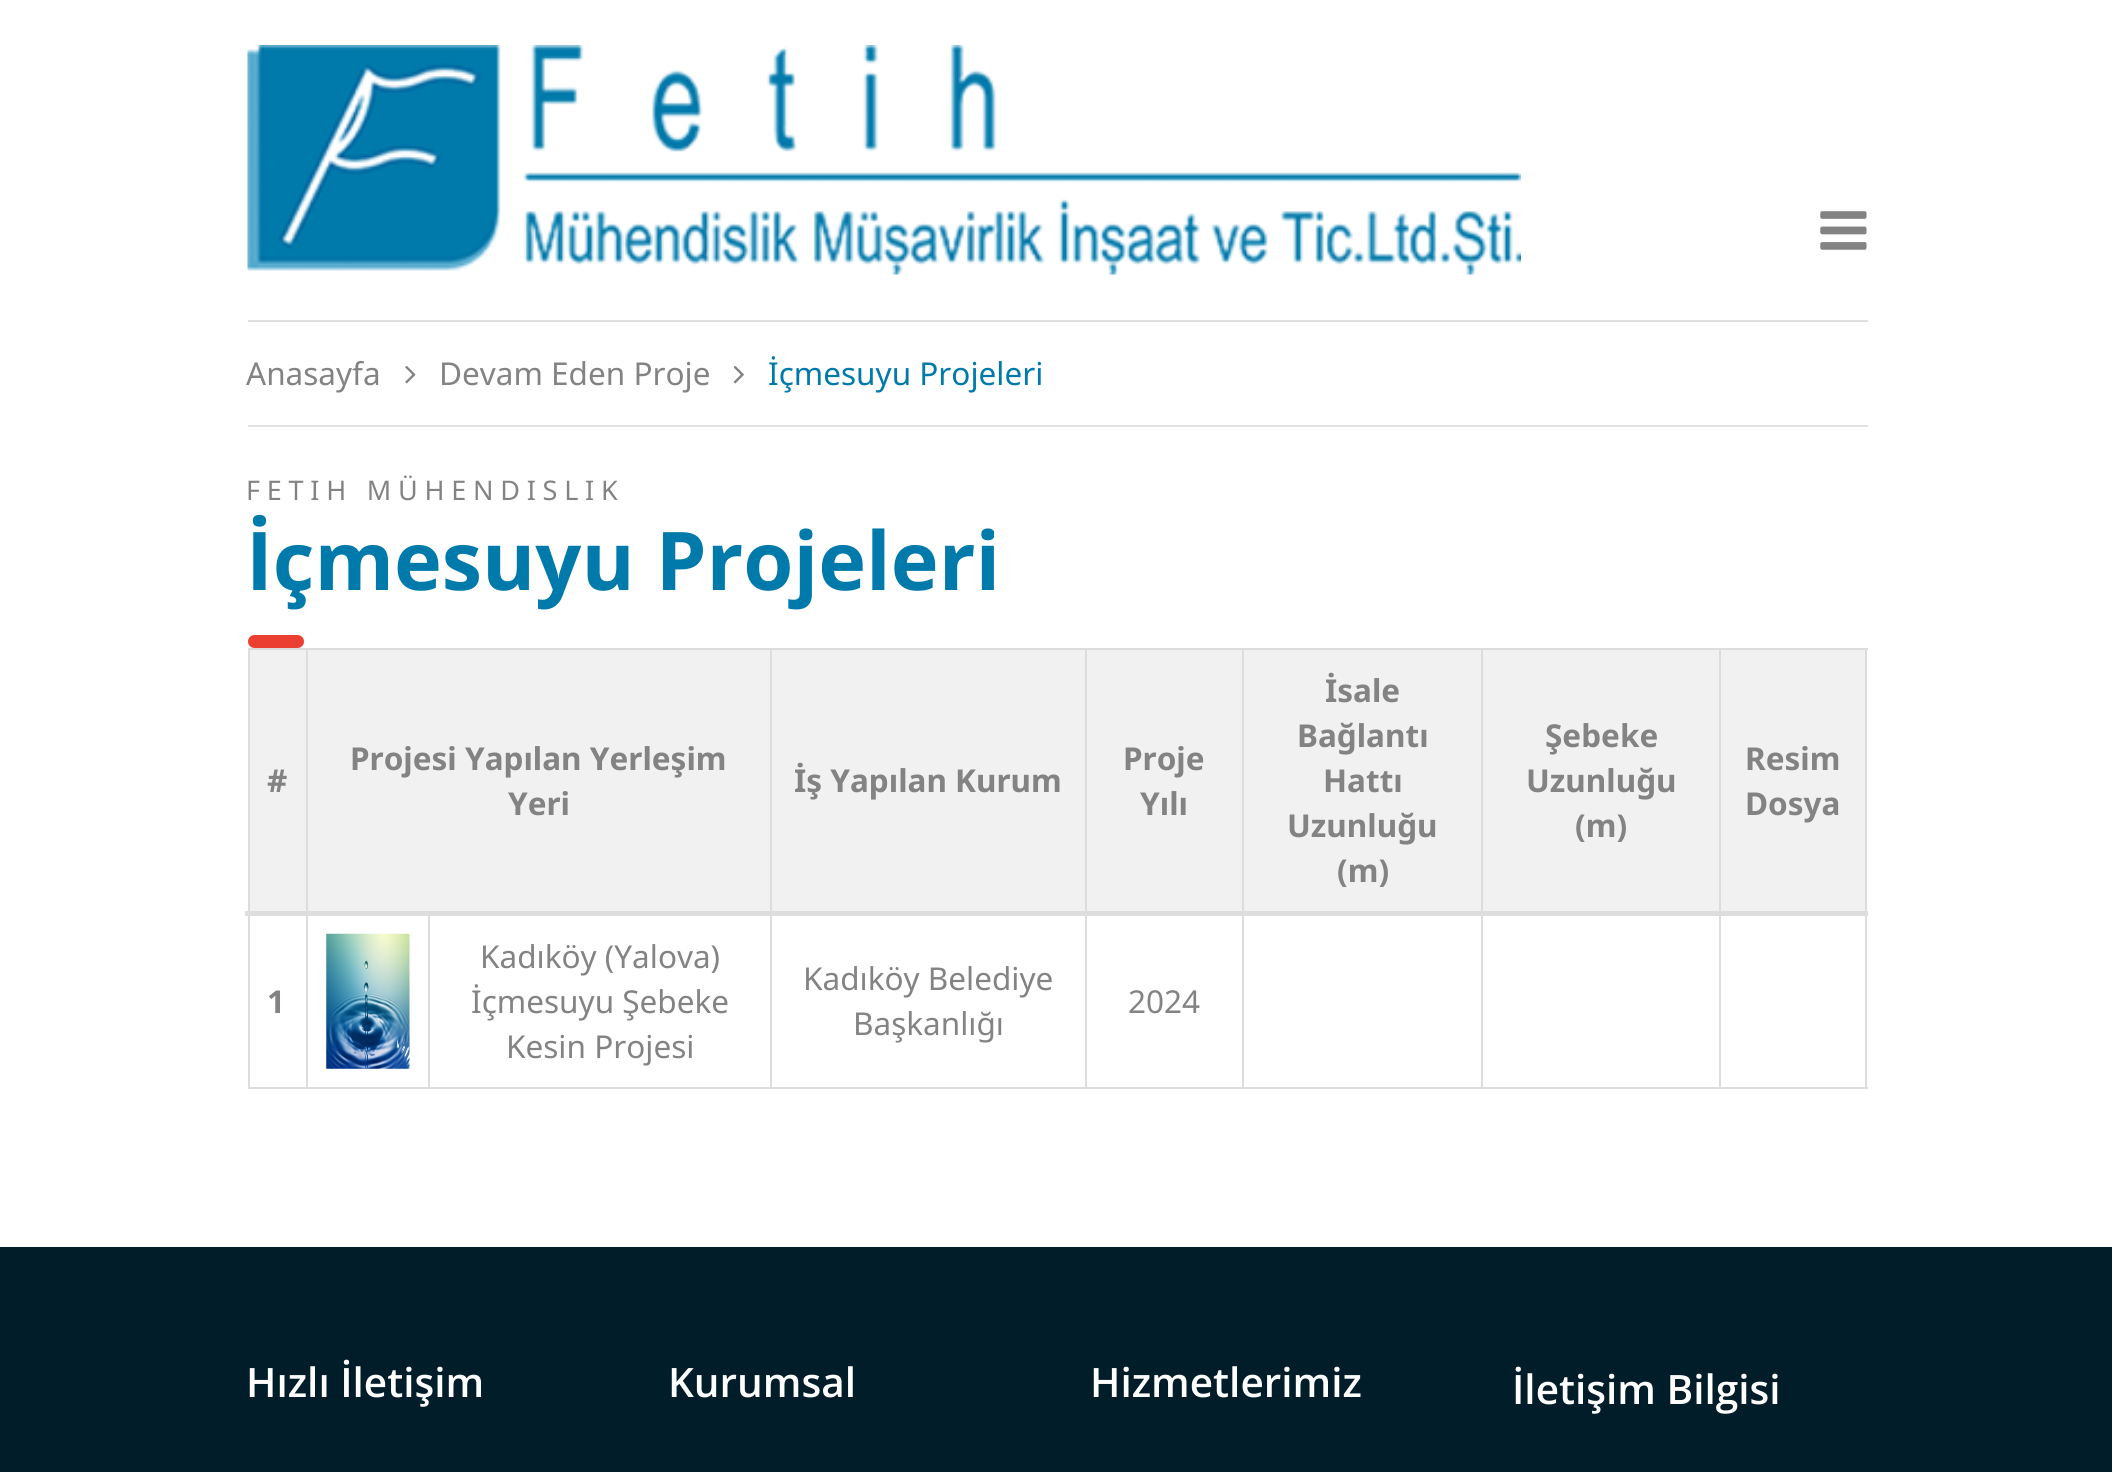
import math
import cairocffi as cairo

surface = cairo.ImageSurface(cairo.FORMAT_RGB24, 2112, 1472)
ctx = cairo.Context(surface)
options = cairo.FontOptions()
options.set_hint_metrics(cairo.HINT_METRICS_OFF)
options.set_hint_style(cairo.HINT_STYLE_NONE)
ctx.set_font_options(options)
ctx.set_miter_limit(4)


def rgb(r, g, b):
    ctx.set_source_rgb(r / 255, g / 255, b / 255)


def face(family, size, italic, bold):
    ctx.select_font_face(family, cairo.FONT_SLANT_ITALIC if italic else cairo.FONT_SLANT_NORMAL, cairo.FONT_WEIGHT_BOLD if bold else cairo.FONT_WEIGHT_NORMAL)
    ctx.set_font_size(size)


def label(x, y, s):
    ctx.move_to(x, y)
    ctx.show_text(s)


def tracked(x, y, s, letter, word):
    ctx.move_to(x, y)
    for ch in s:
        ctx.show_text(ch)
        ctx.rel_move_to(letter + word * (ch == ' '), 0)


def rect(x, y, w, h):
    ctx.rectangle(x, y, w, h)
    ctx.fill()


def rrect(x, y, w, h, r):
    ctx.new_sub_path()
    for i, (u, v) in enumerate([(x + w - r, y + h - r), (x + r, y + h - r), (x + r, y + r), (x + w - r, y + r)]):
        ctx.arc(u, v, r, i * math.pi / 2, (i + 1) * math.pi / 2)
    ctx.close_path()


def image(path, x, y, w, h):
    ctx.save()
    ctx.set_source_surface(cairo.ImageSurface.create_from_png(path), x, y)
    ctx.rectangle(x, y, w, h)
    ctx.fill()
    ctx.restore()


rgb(255, 255, 255)
ctx.paint()
image('image0.png', 247, 45, 1274, 230)
image('image1.png', 1820, 211, 47, 39)
rgb(225, 225, 225)
rect(248, 320, 1620, 2)
rect(248, 425, 1620, 2)
face('Noto Sans', 31.5, 0, 0)
rgb(131, 131, 131)
label(246, 385, 'Anasayfa')
image('image2.png', 405, 365, 11, 19)
label(439, 385, 'Devam Eden Proje')
image('image3.png', 733, 365, 11, 19)
rgb(0, 122, 171)
label(768, 385, 'İçmesuyu Projeleri')
face('Noto Sans', 27, 0, 0)
rgb(131, 131, 131)
tracked(246, 500, 'FETIH MÜHENDISLIK', 6.75, 0)
face('Open Sans', 81, 0, 1)
rgb(0, 122, 171)
label(246, 590, 'İçmesuyu Projeleri')
rgb(235, 64, 49)
rrect(248, 635, 56, 13, 6.5)
ctx.fill()
rgb(221, 221, 221)
rect(248, 648, 1620, 2)
rect(1865, 648, 2, 441)
rect(248, 1087, 1620, 2)
rect(248, 648, 2, 441)
rgb(241, 241, 241)
rect(250, 650, 1615, 261)
face('Noto Sans', 31.5, 0, 1)
rgb(131, 131, 131)
label(267, 792, '#')
label(350, 770, 'Projesi Yapılan Yerleşim')
label(508, 815, 'Yeri')
label(794, 792, 'İş Yapılan Kurum')
label(1123, 770, 'Proje')
label(1140, 815, 'Yılı')
label(1325, 702, 'İsale')
label(1297, 747, 'Bağlantı')
label(1323, 792, 'Hattı')
label(1287, 837, 'Uzunluğu')
label(1337, 882, '(m)')
label(1545, 747, 'Şebeke')
label(1526, 792, 'Uzunluğu')
label(1575, 837, '(m)')
rgb(221, 221, 221)
rect(306, 648, 2, 441)
rect(428, 914, 2, 175)
rect(770, 648, 2, 441)
rect(1085, 648, 2, 441)
rect(1242, 648, 2, 441)
rect(1481, 648, 2, 441)
rect(1719, 648, 2, 441)
rect(245, 911, 1623, 5)
rgb(131, 131, 131)
label(1745, 770, 'Resim')
label(1745, 815, 'Dosya')
label(267, 1013, '1')
image('image4.png', 326, 933, 84, 136)
face('Noto Sans', 31.5, 0, 0)
label(480, 968, 'Kadıköy (Yalova)')
label(471, 1013, 'İçmesuyu Şebeke')
label(506, 1058, 'Kesin Projesi')
label(803, 990, 'Kadıköy Belediye')
label(853, 1035, 'Başkanlığı')
label(1128, 1013, '2024')
rgb(0, 29, 41)
rect(0, 1247, 2112, 225)
face('Open Sans SemiBold', 40.5, 0, 0)
rgb(255, 255, 255)
label(246, 1397, 'Hızlı İletişim')
label(668, 1397, 'Kurumsal')
label(1090, 1397, 'Hizmetlerimiz')
label(1512, 1404, 'İletişim Bilgisi')
surface.write_to_png('render.png')
